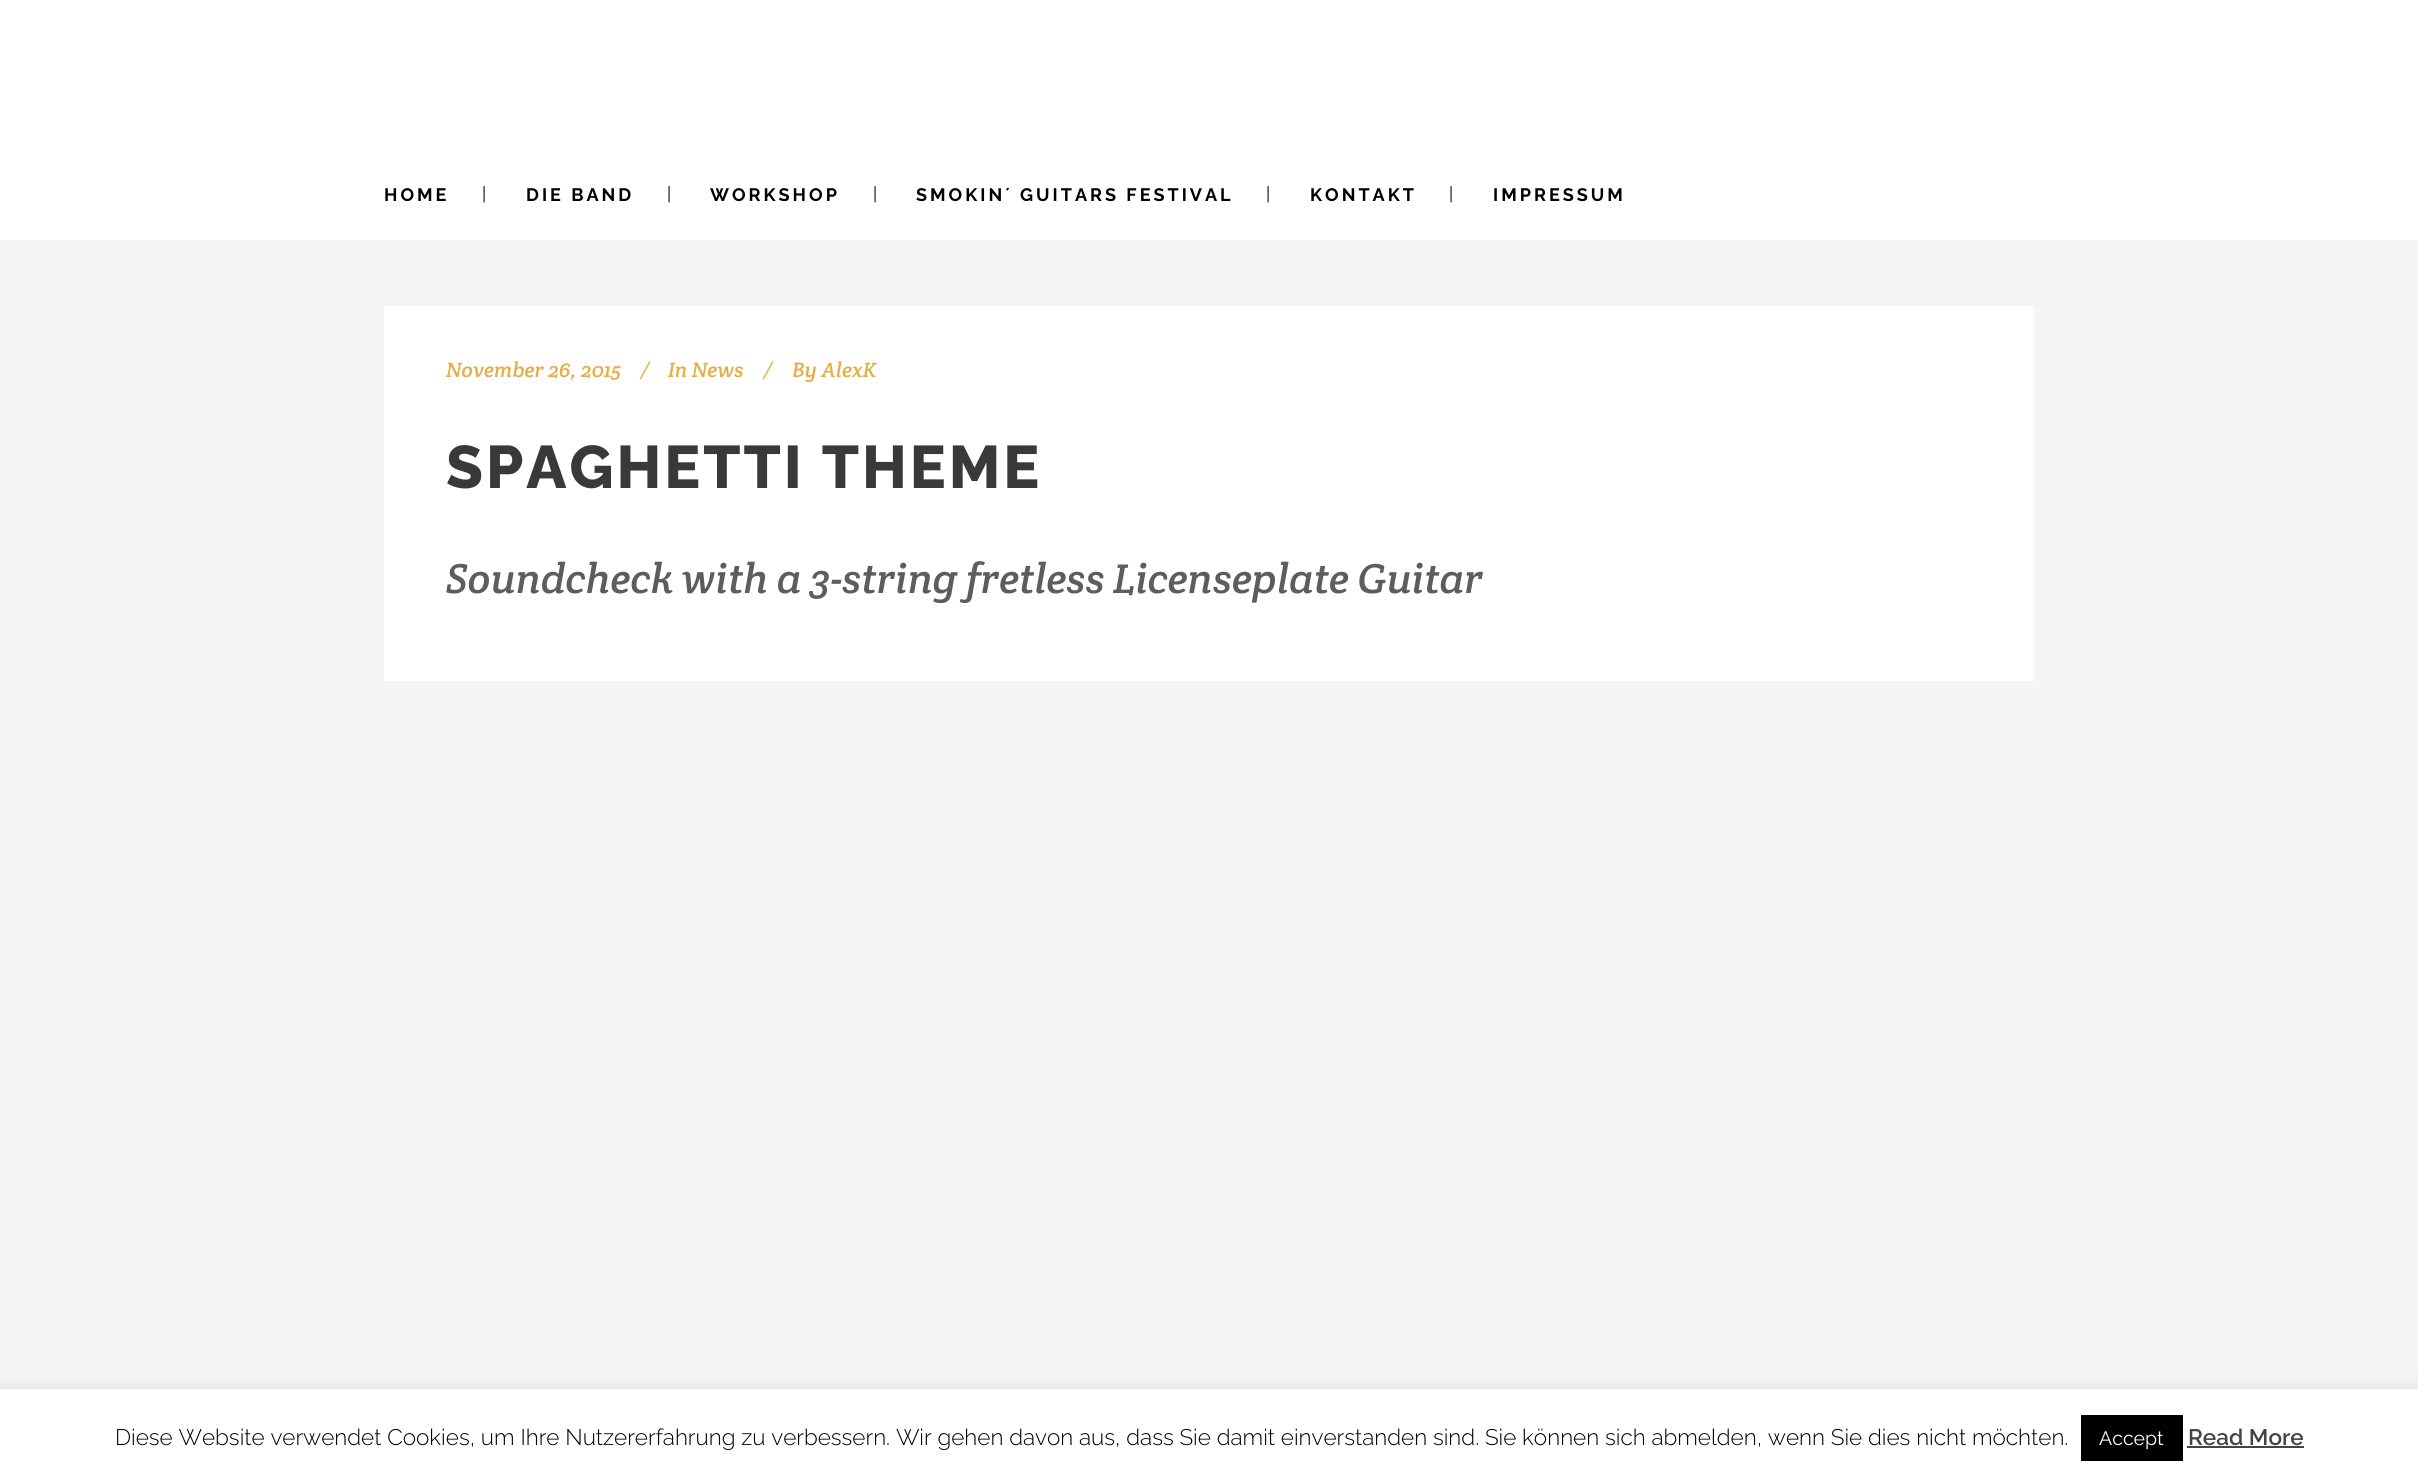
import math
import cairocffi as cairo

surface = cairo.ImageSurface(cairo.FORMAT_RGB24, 2418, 1479)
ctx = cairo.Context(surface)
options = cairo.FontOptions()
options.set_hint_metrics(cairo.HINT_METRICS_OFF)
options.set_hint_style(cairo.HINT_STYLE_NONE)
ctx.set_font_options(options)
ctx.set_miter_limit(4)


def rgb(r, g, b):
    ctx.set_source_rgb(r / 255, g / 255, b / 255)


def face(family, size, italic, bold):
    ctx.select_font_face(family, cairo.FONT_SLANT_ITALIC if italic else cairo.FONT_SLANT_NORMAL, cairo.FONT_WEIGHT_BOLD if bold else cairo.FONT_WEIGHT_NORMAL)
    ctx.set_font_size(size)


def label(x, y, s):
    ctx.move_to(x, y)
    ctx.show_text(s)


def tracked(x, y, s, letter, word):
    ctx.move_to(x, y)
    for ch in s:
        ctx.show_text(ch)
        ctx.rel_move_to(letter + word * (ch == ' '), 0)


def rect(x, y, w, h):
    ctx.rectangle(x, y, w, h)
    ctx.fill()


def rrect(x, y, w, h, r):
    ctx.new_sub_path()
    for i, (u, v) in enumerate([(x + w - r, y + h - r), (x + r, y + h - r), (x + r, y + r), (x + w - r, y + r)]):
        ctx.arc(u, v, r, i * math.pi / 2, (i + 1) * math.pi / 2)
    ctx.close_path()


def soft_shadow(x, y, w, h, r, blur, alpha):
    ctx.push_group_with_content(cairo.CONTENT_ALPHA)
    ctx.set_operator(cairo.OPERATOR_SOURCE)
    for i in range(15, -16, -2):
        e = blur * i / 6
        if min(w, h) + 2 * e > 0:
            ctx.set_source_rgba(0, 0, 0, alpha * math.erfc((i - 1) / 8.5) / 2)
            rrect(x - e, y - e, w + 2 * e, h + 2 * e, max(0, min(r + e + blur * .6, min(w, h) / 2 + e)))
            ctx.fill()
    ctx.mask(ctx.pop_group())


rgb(245, 245, 245)
ctx.paint()
rgb(255, 255, 255)
rect(0, 0, 2418, 240)
face('Raleway', 18, 0, 1)
rgb(0, 0, 0)
tracked(384, 201, 'HOME', 3, 0)
face('Raleway', 18, 0, 0)
label(482, 200, '|')
face('Raleway', 18, 0, 1)
tracked(526, 201, 'DIE BAND', 3, 0)
face('Raleway', 18, 0, 0)
label(667, 200, '|')
face('Raleway', 18, 0, 1)
tracked(710, 201, 'WORKSHOP', 3, 0)
face('Raleway', 18, 0, 0)
label(873, 200, '|')
face('Raleway', 18, 0, 1)
tracked(916, 201, 'SMOKIN´ GUITARS FESTIVAL', 3, 0)
face('Raleway', 18, 0, 0)
label(1266, 200, '|')
face('Raleway', 18, 0, 1)
tracked(1310, 201, 'KONTAKT', 3, 0)
face('Raleway', 18, 0, 0)
label(1449, 200, '|')
face('Raleway', 18, 0, 1)
tracked(1493, 201, 'IMPRESSUM', 3, 0)
rgb(255, 255, 255)
rect(384, 306, 1650, 375)
face('Crete Round', 21, 1, 0)
rgb(230, 174, 72)
label(446, 377, 'November 26, 2015')
label(640, 377, '/')
label(668, 377, 'In News')
label(763, 377, '/')
label(792, 377, 'By AlexK')
face('Raleway ExtraBold', 60, 0, 0)
rgb(57, 57, 57)
tracked(446, 488, 'SPAGHETTI THEME', 3, 0)
face('Crete Round', 42, 1, 0)
rgb(93, 93, 93)
label(446, 593, 'Soundcheck with a 3-string fretless Licenseplate Guitar')
rgb(172, 171, 171)
soft_shadow(0, 1388, 2418, 90, 0, 7.5, 0.3)
rgb(255, 255, 255)
rect(0, 1389, 2418, 90)
face('Raleway Light', 22.5, 0, 0)
rgb(0, 0, 0)
label(115, 1445, 'Diese Website verwendet Cookies, um Ihre Nutzererfahrung zu verbessern. Wir gehen davon aus, dass Sie damit einverstanden sind. Sie können sich abmelden, wenn Sie dies nicht möchten.')
rect(2081, 1415, 102, 46)
face('Raleway', 19.5, 0, 0)
rgb(255, 255, 255)
label(2099, 1445, 'Accept')
face('Raleway SemiBold', 22.5, 0, 0)
rgb(68, 68, 68)
label(2188, 1445, 'Read More')
rect(2187, 1446, 117, 2)
surface.write_to_png('render.png')
